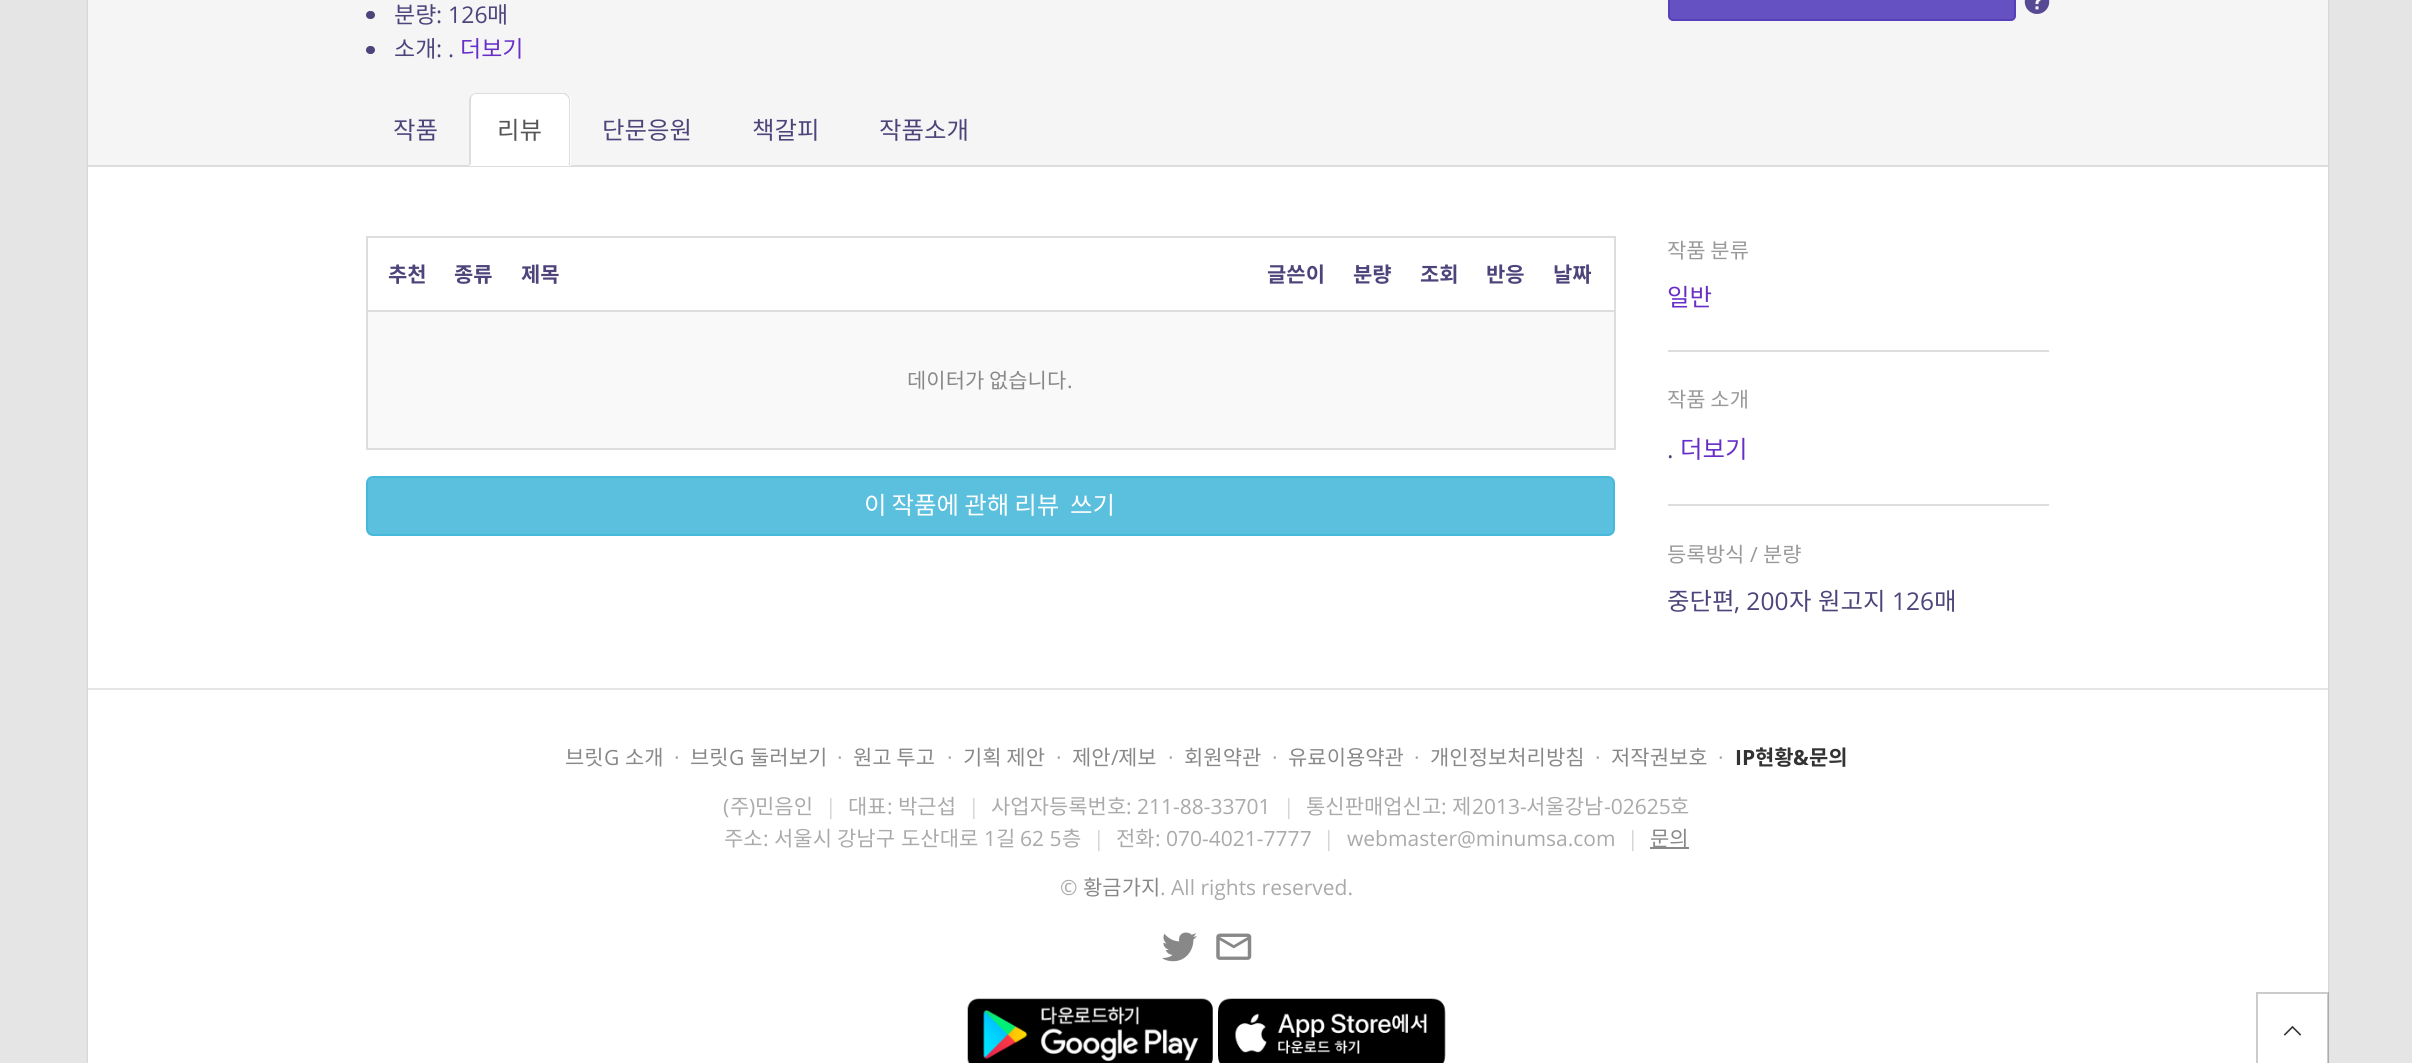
import math
import cairocffi as cairo

surface = cairo.ImageSurface(cairo.FORMAT_RGB24, 2412, 1063)
ctx = cairo.Context(surface)
options = cairo.FontOptions()
options.set_hint_metrics(cairo.HINT_METRICS_OFF)
options.set_hint_style(cairo.HINT_STYLE_NONE)
ctx.set_font_options(options)
ctx.set_miter_limit(4)


def rgb(r, g, b):
    ctx.set_source_rgb(r / 255, g / 255, b / 255)


def face(family, size, italic, bold):
    ctx.select_font_face(family, cairo.FONT_SLANT_ITALIC if italic else cairo.FONT_SLANT_NORMAL, cairo.FONT_WEIGHT_BOLD if bold else cairo.FONT_WEIGHT_NORMAL)
    ctx.set_font_size(size)


def label(x, y, s):
    ctx.move_to(x, y)
    ctx.show_text(s)


def tracked(x, y, s, letter, word):
    ctx.move_to(x, y)
    for ch in s:
        ctx.show_text(ch)
        ctx.rel_move_to(letter + word * (ch == ' '), 0)


def rect(x, y, w, h):
    ctx.rectangle(x, y, w, h)
    ctx.fill()


def rrect(x, y, w, h, r):
    ctx.new_sub_path()
    for i, (u, v) in enumerate([(x + w - r, y + h - r), (x + r, y + h - r), (x + r, y + r), (x + w - r, y + r)]):
        ctx.arc(u, v, r, i * math.pi / 2, (i + 1) * math.pi / 2)
    ctx.close_path()


def soft_shadow(x, y, w, h, r, blur, alpha):
    ctx.push_group_with_content(cairo.CONTENT_ALPHA)
    ctx.set_operator(cairo.OPERATOR_SOURCE)
    for i in range(15, -16, -2):
        e = blur * i / 6
        if min(w, h) + 2 * e > 0:
            ctx.set_source_rgba(0, 0, 0, alpha * math.erfc((i - 1) / 8.5) / 2)
            rrect(x - e, y - e, w + 2 * e, h + 2 * e, max(0, min(r + e + blur * .6, min(w, h) / 2 + e)))
            ctx.fill()
    ctx.mask(ctx.pop_group())


def image(path, x, y, w, h):
    ctx.save()
    ctx.set_source_surface(cairo.ImageSurface.create_from_png(path), x, y)
    ctx.rectangle(x, y, w, h)
    ctx.fill()
    ctx.restore()


rgb(229, 229, 229)
ctx.paint()
rgb(0, 0, 0)
soft_shadow(88, -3, 2240, 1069, 0, 1, 0.2)
rgb(255, 255, 255)
rect(88, 167, 2240, 896)
rgb(245, 245, 245)
rect(88, 0, 2240, 165)
rgb(221, 221, 221)
rect(88, 165, 2240, 2)
rgb(78, 68, 123)
rrect(366, 11, 9, 8, 4)
ctx.fill()
face('Noto Sans KR', 23, 0, 0)
label(394, 23, '분량')
face('Open Sans', 23, 0, 0)
label(436, 23, ': 126')
face('Noto Sans KR', 23, 0, 0)
label(487, 23, '매')
rrect(366, 46, 9, 8, 4)
ctx.fill()
label(394, 57, '소개')
face('Open Sans', 23, 0, 0)
label(436, 57, ': .')
face('Noto Sans KR', 23, 0, 0)
rgb(103, 46, 200)
label(460, 57, '더보기')
rgb(102, 81, 195)
rrect(1669, -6, 346, 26, 4)
ctx.fill_preserve()
rgb(87, 64, 186)
ctx.stroke()
image('image0.png', 2024, 0, 26, 14)
face('Noto Sans KR', 24.5, 0, 0)
rgb(78, 68, 123)
label(393, 139, '작품')
rgb(255, 255, 255)
ctx.new_path()
ctx.move_to(476, 93)
ctx.line_to(564, 93)
ctx.curve_to(568, 93, 571, 96, 571, 100)
ctx.line_to(571, 166)
ctx.line_to(469, 166)
ctx.line_to(469, 100)
ctx.curve_to(469, 96, 472, 93, 476, 93)
ctx.close_path()
ctx.fill()
rgb(221, 221, 221)
ctx.new_path()
ctx.move_to(476, 93)
ctx.curve_to(474, 93, 472, 94, 471, 95)
ctx.line_to(472, 96)
ctx.curve_to(473, 95, 474, 94, 475, 94)
ctx.line_to(564, 94)
ctx.line_to(567, 96)
ctx.line_to(568, 95)
ctx.curve_to(567, 94, 566, 93, 564, 93)
ctx.close_path()
ctx.fill()
ctx.new_path()
ctx.move_to(570, 166)
ctx.line_to(570, 100)
ctx.curve_to(570, 98, 569, 96, 568, 95)
ctx.line_to(567, 96)
ctx.curve_to(568, 97, 569, 99, 569, 100)
ctx.line_to(569, 164)
ctx.line_to(568, 164)
ctx.close_path()
ctx.fill()
ctx.new_path()
ctx.move_to(469, 100)
ctx.line_to(469, 166)
ctx.line_to(471, 164)
ctx.line_to(471, 100)
ctx.curve_to(471, 99, 471, 97, 472, 96)
ctx.line_to(471, 95)
ctx.curve_to(470, 96, 469, 98, 469, 100)
ctx.close_path()
ctx.fill()
rgb(85, 85, 85)
label(497, 139, '리뷰')
rgb(78, 68, 123)
label(602, 139, '단문응원')
label(752, 139, '책갈피')
label(879, 139, '작품소개')
rgb(221, 221, 221)
rect(366, 236, 1249, 2)
rect(1614, 236, 2, 214)
rect(366, 448, 1249, 2)
rect(366, 236, 2, 214)
face('Noto Sans KR', 21, 0, 1)
rgb(78, 68, 123)
label(388, 282, '추천')
label(454, 282, '종류')
label(521, 282, '제목')
label(1267, 282, '글쓴이')
label(1353, 282, '분량')
label(1420, 282, '조회')
label(1486, 282, '반응')
label(1553, 282, '날짜')
rgb(249, 249, 249)
rect(368, 312, 1246, 136)
rgb(221, 221, 221)
rect(366, 310, 1249, 2)
face('Noto Sans KR', 21, 0, 0)
rgb(136, 136, 136)
label(907, 388, '데이터가 없습니다')
face('Open Sans', 21, 0, 0)
label(1067, 388, '.')
rgb(91, 192, 222)
rrect(367, 477, 1247, 58, 6)
ctx.fill_preserve()
rgb(70, 184, 218)
ctx.stroke()
face('Noto Sans KR', 24.5, 0, 0)
rgb(255, 255, 255)
tracked(864, 514, '이 작품에 관해 리뷰', 0, -0.5)
tracked(1070, 514, '쓰기', 0, -0.5)
face('Noto Sans KR', 21, 0, 0)
rgb(153, 153, 153)
label(1667, 258, '작품 분류')
face('Noto Sans KR', 24.5, 0, 0)
rgb(103, 46, 200)
label(1667, 306, '일반')
rgb(221, 221, 221)
rect(1668, 350, 381, 2)
face('Noto Sans KR', 21, 0, 0)
rgb(153, 153, 153)
label(1667, 407, '작품 소개')
face('Open Sans', 24.5, 0, 0)
rgb(78, 68, 123)
label(1667, 458, '.')
face('Noto Sans KR', 24.5, 0, 0)
rgb(103, 46, 200)
label(1680, 458, '더보기')
rgb(221, 221, 221)
rect(1668, 504, 381, 2)
face('Noto Sans KR', 21, 0, 0)
rgb(153, 153, 153)
label(1667, 562, '등록방식')
face('Open Sans', 21, 0, 0)
label(1750, 562, '/')
face('Noto Sans KR', 21, 0, 0)
label(1763, 562, '분량')
face('Noto Sans KR', 24.5, 0, 0)
rgb(78, 68, 123)
label(1667, 610, '중단편')
face('Open Sans', 24.5, 0, 0)
label(1734, 610, ', 200')
face('Noto Sans KR', 24.5, 0, 0)
label(1789, 610, '자')
label(1818, 610, '원고지')
face('Open Sans', 24.5, 0, 0)
label(1892, 610, '126')
face('Noto Sans KR', 24.5, 0, 0)
label(1934, 610, '매')
rgb(230, 230, 230)
rect(88, 688, 2240, 2)
face('Noto Sans KR', 21, 0, 0)
rgb(136, 136, 136)
label(565, 765, '브릿')
face('Open Sans', 21, 0, 0)
label(604, 765, 'G')
face('Noto Sans KR', 21, 0, 0)
label(625, 765, '소개')
face('Open Sans', 21, 0, 0)
rgb(170, 170, 170)
label(674, 765, '·')
face('Noto Sans KR', 21, 0, 0)
rgb(136, 136, 136)
label(690, 765, '브릿')
face('Open Sans', 21, 0, 0)
label(729, 765, 'G')
face('Noto Sans KR', 21, 0, 0)
label(750, 765, '둘러보기')
face('Open Sans', 21, 0, 0)
rgb(170, 170, 170)
label(837, 765, '·')
face('Noto Sans KR', 21, 0, 0)
rgb(136, 136, 136)
label(853, 765, '원고 투고')
face('Open Sans', 21, 0, 0)
rgb(170, 170, 170)
label(947, 765, '·')
face('Noto Sans KR', 21, 0, 0)
rgb(136, 136, 136)
label(963, 765, '기획 제안')
face('Open Sans', 21, 0, 0)
rgb(170, 170, 170)
label(1056, 765, '·')
face('Noto Sans KR', 21, 0, 0)
rgb(136, 136, 136)
label(1072, 765, '제안')
face('Open Sans', 21, 0, 0)
label(1111, 765, '/')
face('Noto Sans KR', 21, 0, 0)
label(1118, 765, '제보')
face('Open Sans', 21, 0, 0)
rgb(170, 170, 170)
label(1168, 765, '·')
face('Noto Sans KR', 21, 0, 0)
rgb(136, 136, 136)
label(1184, 765, '회원약관')
face('Open Sans', 21, 0, 0)
rgb(170, 170, 170)
label(1272, 765, '·')
face('Noto Sans KR', 21, 0, 0)
rgb(136, 136, 136)
label(1288, 765, '유료이용약관')
face('Open Sans', 21, 0, 0)
rgb(170, 170, 170)
label(1414, 765, '·')
face('Noto Sans KR', 21, 0, 0)
rgb(136, 136, 136)
label(1430, 765, '개인정보처리방침')
face('Open Sans', 21, 0, 0)
rgb(170, 170, 170)
label(1595, 765, '·')
face('Noto Sans KR', 21, 0, 0)
rgb(136, 136, 136)
label(1611, 765, '저작권보호')
face('Open Sans', 21, 0, 0)
rgb(170, 170, 170)
label(1718, 765, '·')
face('Open Sans', 21, 0, 1)
rgb(51, 51, 51)
label(1735, 765, 'IP')
face('Noto Sans KR', 21, 0, 1)
label(1755, 765, '현황')
face('Open Sans', 21, 0, 1)
label(1793, 765, '&')
face('Noto Sans KR', 21, 0, 1)
label(1809, 765, '문의')
face('Open Sans', 21, 0, 0)
rgb(170, 170, 170)
label(723, 814, '(')
face('Noto Sans KR', 21, 0, 0)
label(730, 814, '주')
face('Open Sans', 21, 0, 0)
label(749, 814, ')')
face('Noto Sans KR', 21, 0, 0)
label(755, 814, '민음인')
face('Open Sans', 21, 0, 0)
rgb(213, 213, 213)
label(825, 814, '|')
face('Noto Sans KR', 21, 0, 0)
rgb(170, 170, 170)
label(848, 814, '대표')
face('Open Sans', 21, 0, 0)
label(887, 814, ':')
face('Noto Sans KR', 21, 0, 0)
label(898, 814, '박근섭')
face('Open Sans', 21, 0, 0)
rgb(213, 213, 213)
label(968, 814, '|')
face('Noto Sans KR', 21, 0, 0)
rgb(170, 170, 170)
label(991, 814, '사업자등록번호')
face('Open Sans', 21, 0, 0)
label(1126, 814, ': 211-88-33701')
rgb(213, 213, 213)
label(1283, 814, '|')
face('Noto Sans KR', 21, 0, 0)
rgb(170, 170, 170)
label(1306, 814, '통신판매업신고')
face('Open Sans', 21, 0, 0)
label(1441, 814, ':')
face('Noto Sans KR', 21, 0, 0)
label(1452, 814, '제')
face('Open Sans', 21, 0, 0)
label(1472, 814, '2013-')
face('Noto Sans KR', 21, 0, 0)
label(1526, 814, '서울강남')
face('Open Sans', 21, 0, 0)
label(1604, 814, '-02625')
face('Noto Sans KR', 21, 0, 0)
label(1670, 814, '호')
label(724, 846, '주소')
face('Open Sans', 21, 0, 0)
label(763, 846, ':')
face('Noto Sans KR', 21, 0, 0)
label(774, 846, '서울시')
label(837, 846, '강남구')
label(901, 846, '도산대로')
face('Open Sans', 21, 0, 0)
label(984, 846, '1')
face('Noto Sans KR', 21, 0, 0)
label(996, 846, '길')
face('Open Sans', 21, 0, 0)
label(1020, 846, '62 5')
face('Noto Sans KR', 21, 0, 0)
label(1062, 846, '층')
face('Open Sans', 21, 0, 0)
rgb(213, 213, 213)
label(1093, 846, '|')
face('Noto Sans KR', 21, 0, 0)
rgb(170, 170, 170)
label(1116, 846, '전화')
face('Open Sans', 21, 0, 0)
label(1155, 846, ': 070-4021-7777')
rgb(213, 213, 213)
label(1323, 846, '|')
rgb(170, 170, 170)
label(1347, 846, 'webmaster@minumsa.com')
rgb(213, 213, 213)
label(1627, 846, '|')
rgb(136, 136, 136)
rect(1650, 847, 39, 2)
face('Noto Sans KR', 21, 0, 0)
label(1650, 846, '문의')
face('Open Sans', 21, 0, 0)
rgb(170, 170, 170)
label(1060, 895, '©')
face('Noto Sans KR', 21, 0, 0)
rgb(136, 136, 136)
label(1083, 895, '황금가지')
face('Open Sans', 21, 0, 0)
rgb(170, 170, 170)
label(1160, 895, '. All rights reserved.')
image('image1.png', 1162, 932, 35, 30)
image('image2.png', 1216, 933, 36, 27)
image('image3.png', 967, 998, 246, 65)
image('image4.png', 1218, 998, 228, 65)
image('image5.png', 2283, 1025, 19, 11)
ctx.rectangle(2257, 993, 71, 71)
ctx.set_source_rgba(0, 0, 0, 0.2)
ctx.stroke()
surface.write_to_png('render.png')
